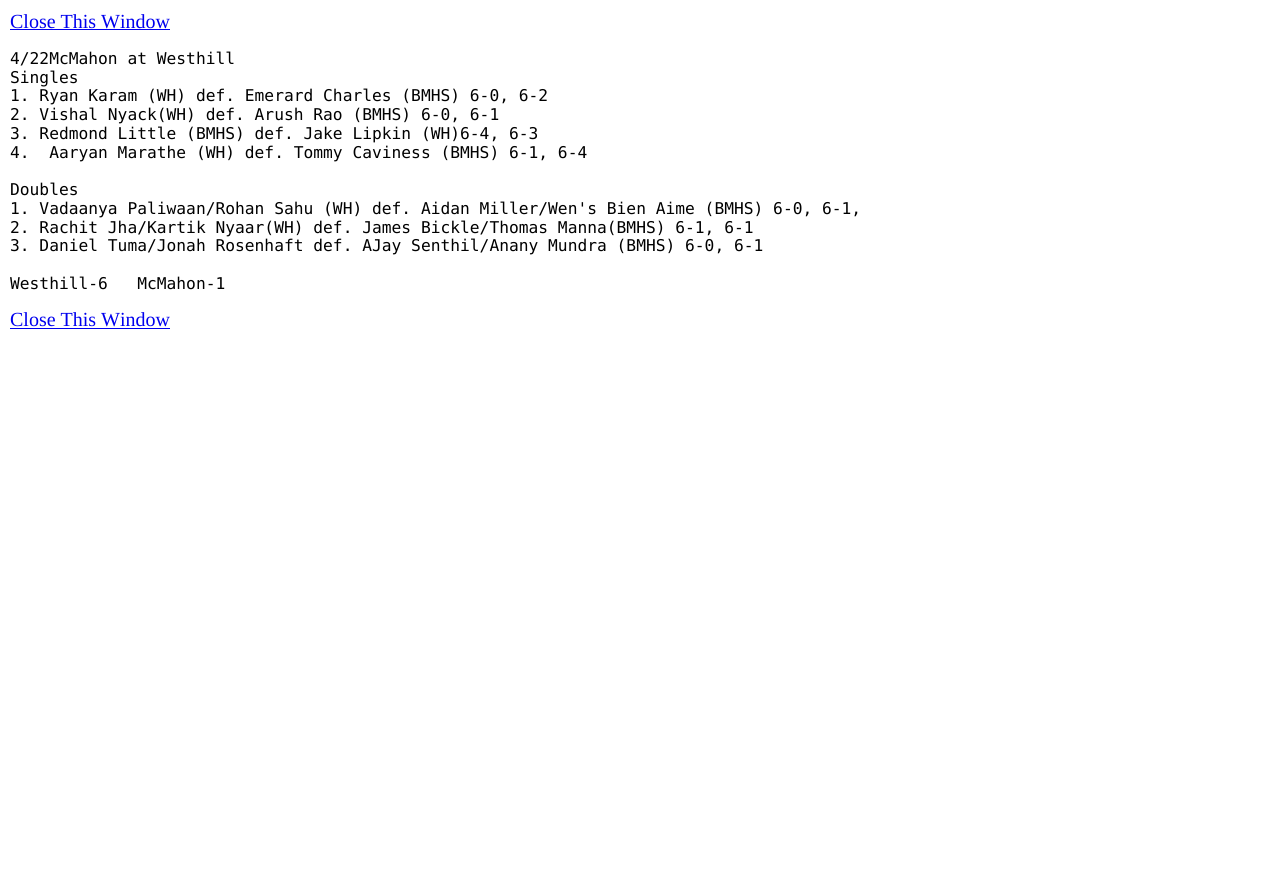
import math
import cairocffi as cairo

surface = cairo.ImageSurface(cairo.FORMAT_RGB24, 1286, 887)
ctx = cairo.Context(surface)
options = cairo.FontOptions()
options.set_hint_metrics(cairo.HINT_METRICS_OFF)
options.set_hint_style(cairo.HINT_STYLE_NONE)
ctx.set_font_options(options)
ctx.set_miter_limit(4)


def rgb(r, g, b):
    ctx.set_source_rgb(r / 255, g / 255, b / 255)


def face(family, size, italic, bold):
    ctx.select_font_face(family, cairo.FONT_SLANT_ITALIC if italic else cairo.FONT_SLANT_NORMAL, cairo.FONT_WEIGHT_BOLD if bold else cairo.FONT_WEIGHT_NORMAL)
    ctx.set_font_size(size)


def label(x, y, s):
    ctx.move_to(x, y)
    ctx.show_text(s)


def rect(x, y, w, h):
    ctx.rectangle(x, y, w, h)
    ctx.fill()


rgb(255, 255, 255)
ctx.paint()
face('Liberation Serif', 20, 0, 0)
rgb(0, 0, 238)
label(10, 28, 'Close This Window')
rect(10, 29, 160, 1)
face('DejaVu Sans Mono', 16.25, 0, 0)
rgb(0, 0, 0)
label(10, 64, '4/22McMahon at Westhill')
label(10, 83, 'Singles')
label(10, 101, '1. Ryan Karam (WH) def. Emerard Charles (BMHS) 6-0, 6-2')
label(10, 120, '2. Vishal Nyack(WH) def. Arush Rao (BMHS) 6-0, 6-1')
label(10, 139, '3. Redmond Little (BMHS) def. Jake Lipkin (WH)6-4, 6-3')
label(10, 158, '4.  Aaryan Marathe (WH) def. Tommy Caviness (BMHS) 6-1, 6-4')
label(10, 195, 'Doubles')
label(10, 214, '1. Vadaanya Paliwaan/Rohan Sahu (WH) def. Aidan Miller/Wen\'s Bien Aime (BMHS) 6-0, 6-1,')
label(10, 233, '2. Rachit Jha/Kartik Nyaar(WH) def. James Bickle/Thomas Manna(BMHS) 6-1, 6-1')
label(10, 251, '3. Daniel Tuma/Jonah Rosenhaft def. AJay Senthil/Anany Mundra (BMHS) 6-0, 6-1')
label(10, 289, 'Westhill-6   McMahon-1')
face('Liberation Serif', 20, 0, 0)
rgb(0, 0, 238)
label(10, 326, 'Close This Window')
rect(10, 328, 160, 1)
surface.write_to_png('render.png')
